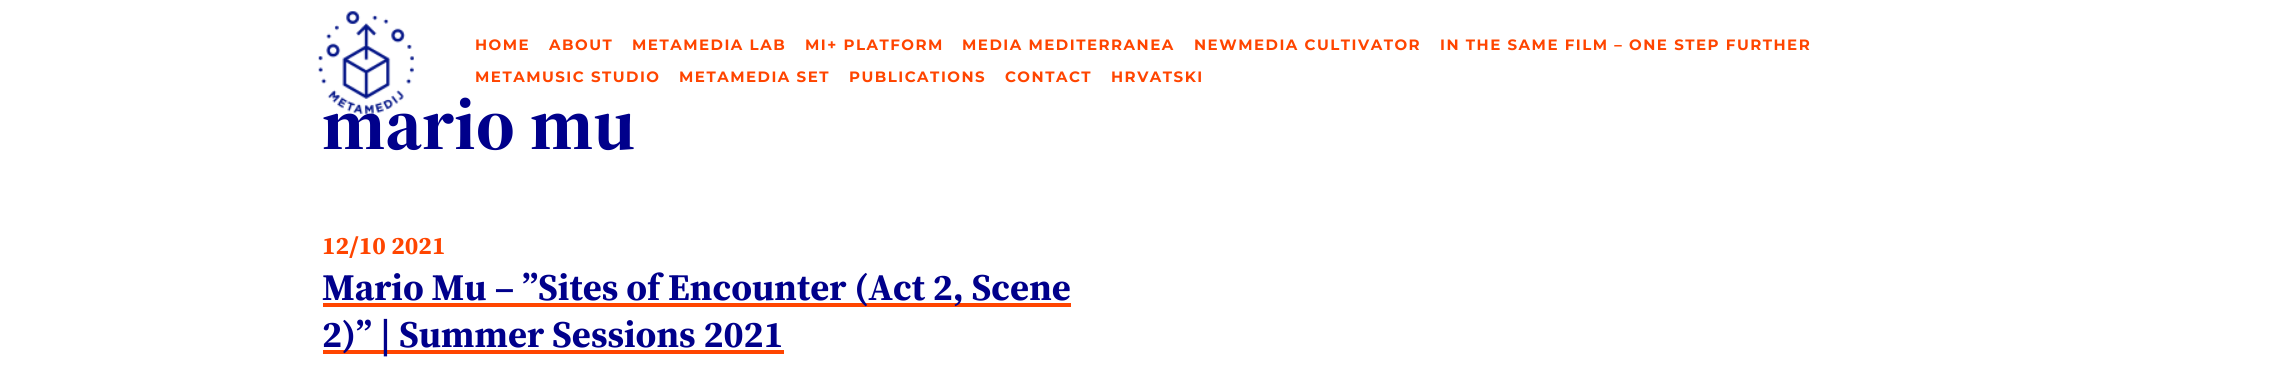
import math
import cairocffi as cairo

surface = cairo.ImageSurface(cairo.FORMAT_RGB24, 2274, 370)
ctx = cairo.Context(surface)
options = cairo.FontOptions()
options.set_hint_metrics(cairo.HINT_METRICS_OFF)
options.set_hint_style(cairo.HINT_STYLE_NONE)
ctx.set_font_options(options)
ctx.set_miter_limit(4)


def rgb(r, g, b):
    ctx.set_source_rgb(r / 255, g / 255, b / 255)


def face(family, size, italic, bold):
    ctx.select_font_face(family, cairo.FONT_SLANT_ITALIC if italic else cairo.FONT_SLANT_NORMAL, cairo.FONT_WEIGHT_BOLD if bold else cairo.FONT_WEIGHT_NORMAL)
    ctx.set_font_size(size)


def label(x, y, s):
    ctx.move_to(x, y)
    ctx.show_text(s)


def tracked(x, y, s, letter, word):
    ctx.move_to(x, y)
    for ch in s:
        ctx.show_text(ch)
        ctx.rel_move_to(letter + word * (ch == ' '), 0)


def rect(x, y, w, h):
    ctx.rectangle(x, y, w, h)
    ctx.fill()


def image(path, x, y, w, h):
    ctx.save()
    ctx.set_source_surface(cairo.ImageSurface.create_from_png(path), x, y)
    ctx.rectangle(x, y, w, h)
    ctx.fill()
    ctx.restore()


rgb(255, 255, 255)
ctx.paint()
face('Source Serif 4', 75, 0, 1)
rgb(0, 0, 139)
label(322, 149, 'mario mu')
image('image0.png', 318, 11, 96, 103)
face('Montserrat', 15, 0, 1)
rgb(255, 69, 0)
tracked(475, 50, 'HOME', 1.5, 0)
tracked(549, 50, 'ABOUT', 1.5, 0)
tracked(632, 50, 'METAMEDIA LAB', 1.5, 0)
tracked(805, 50, 'MI+ PLATFORM', 1.5, 0)
tracked(962, 50, 'MEDIA MEDITERRANEA', 1.5, 0)
tracked(1194, 50, 'NEWMEDIA CULTIVATOR', 1.5, 0)
tracked(1440, 50, 'IN THE SAME FILM – ONE STEP FURTHER', 1.5, 0)
tracked(475, 82, 'METAMUSIC STUDIO', 1.5, 0)
tracked(679, 82, 'METAMEDIA SET', 1.5, 0)
tracked(849, 82, 'PUBLICATIONS', 1.5, 0)
tracked(1005, 82, 'CONTACT', 1.5, 0)
tracked(1111, 82, 'HRVATSKI', 1.5, 0)
face('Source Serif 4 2', 25, 0, 1)
label(322, 254, '12/10 2021')
rect(323, 303, 748, 4)
face('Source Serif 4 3', 37.5, 0, 1)
rgb(0, 0, 139)
label(322, 300, 'Mario Mu – ”Sites of Encounter (Act 2, Scene')
rgb(255, 69, 0)
rect(323, 350, 461, 4)
rgb(0, 0, 139)
label(322, 347, '2)” | Summer Sessions 2021')
surface.write_to_png('render.png')
